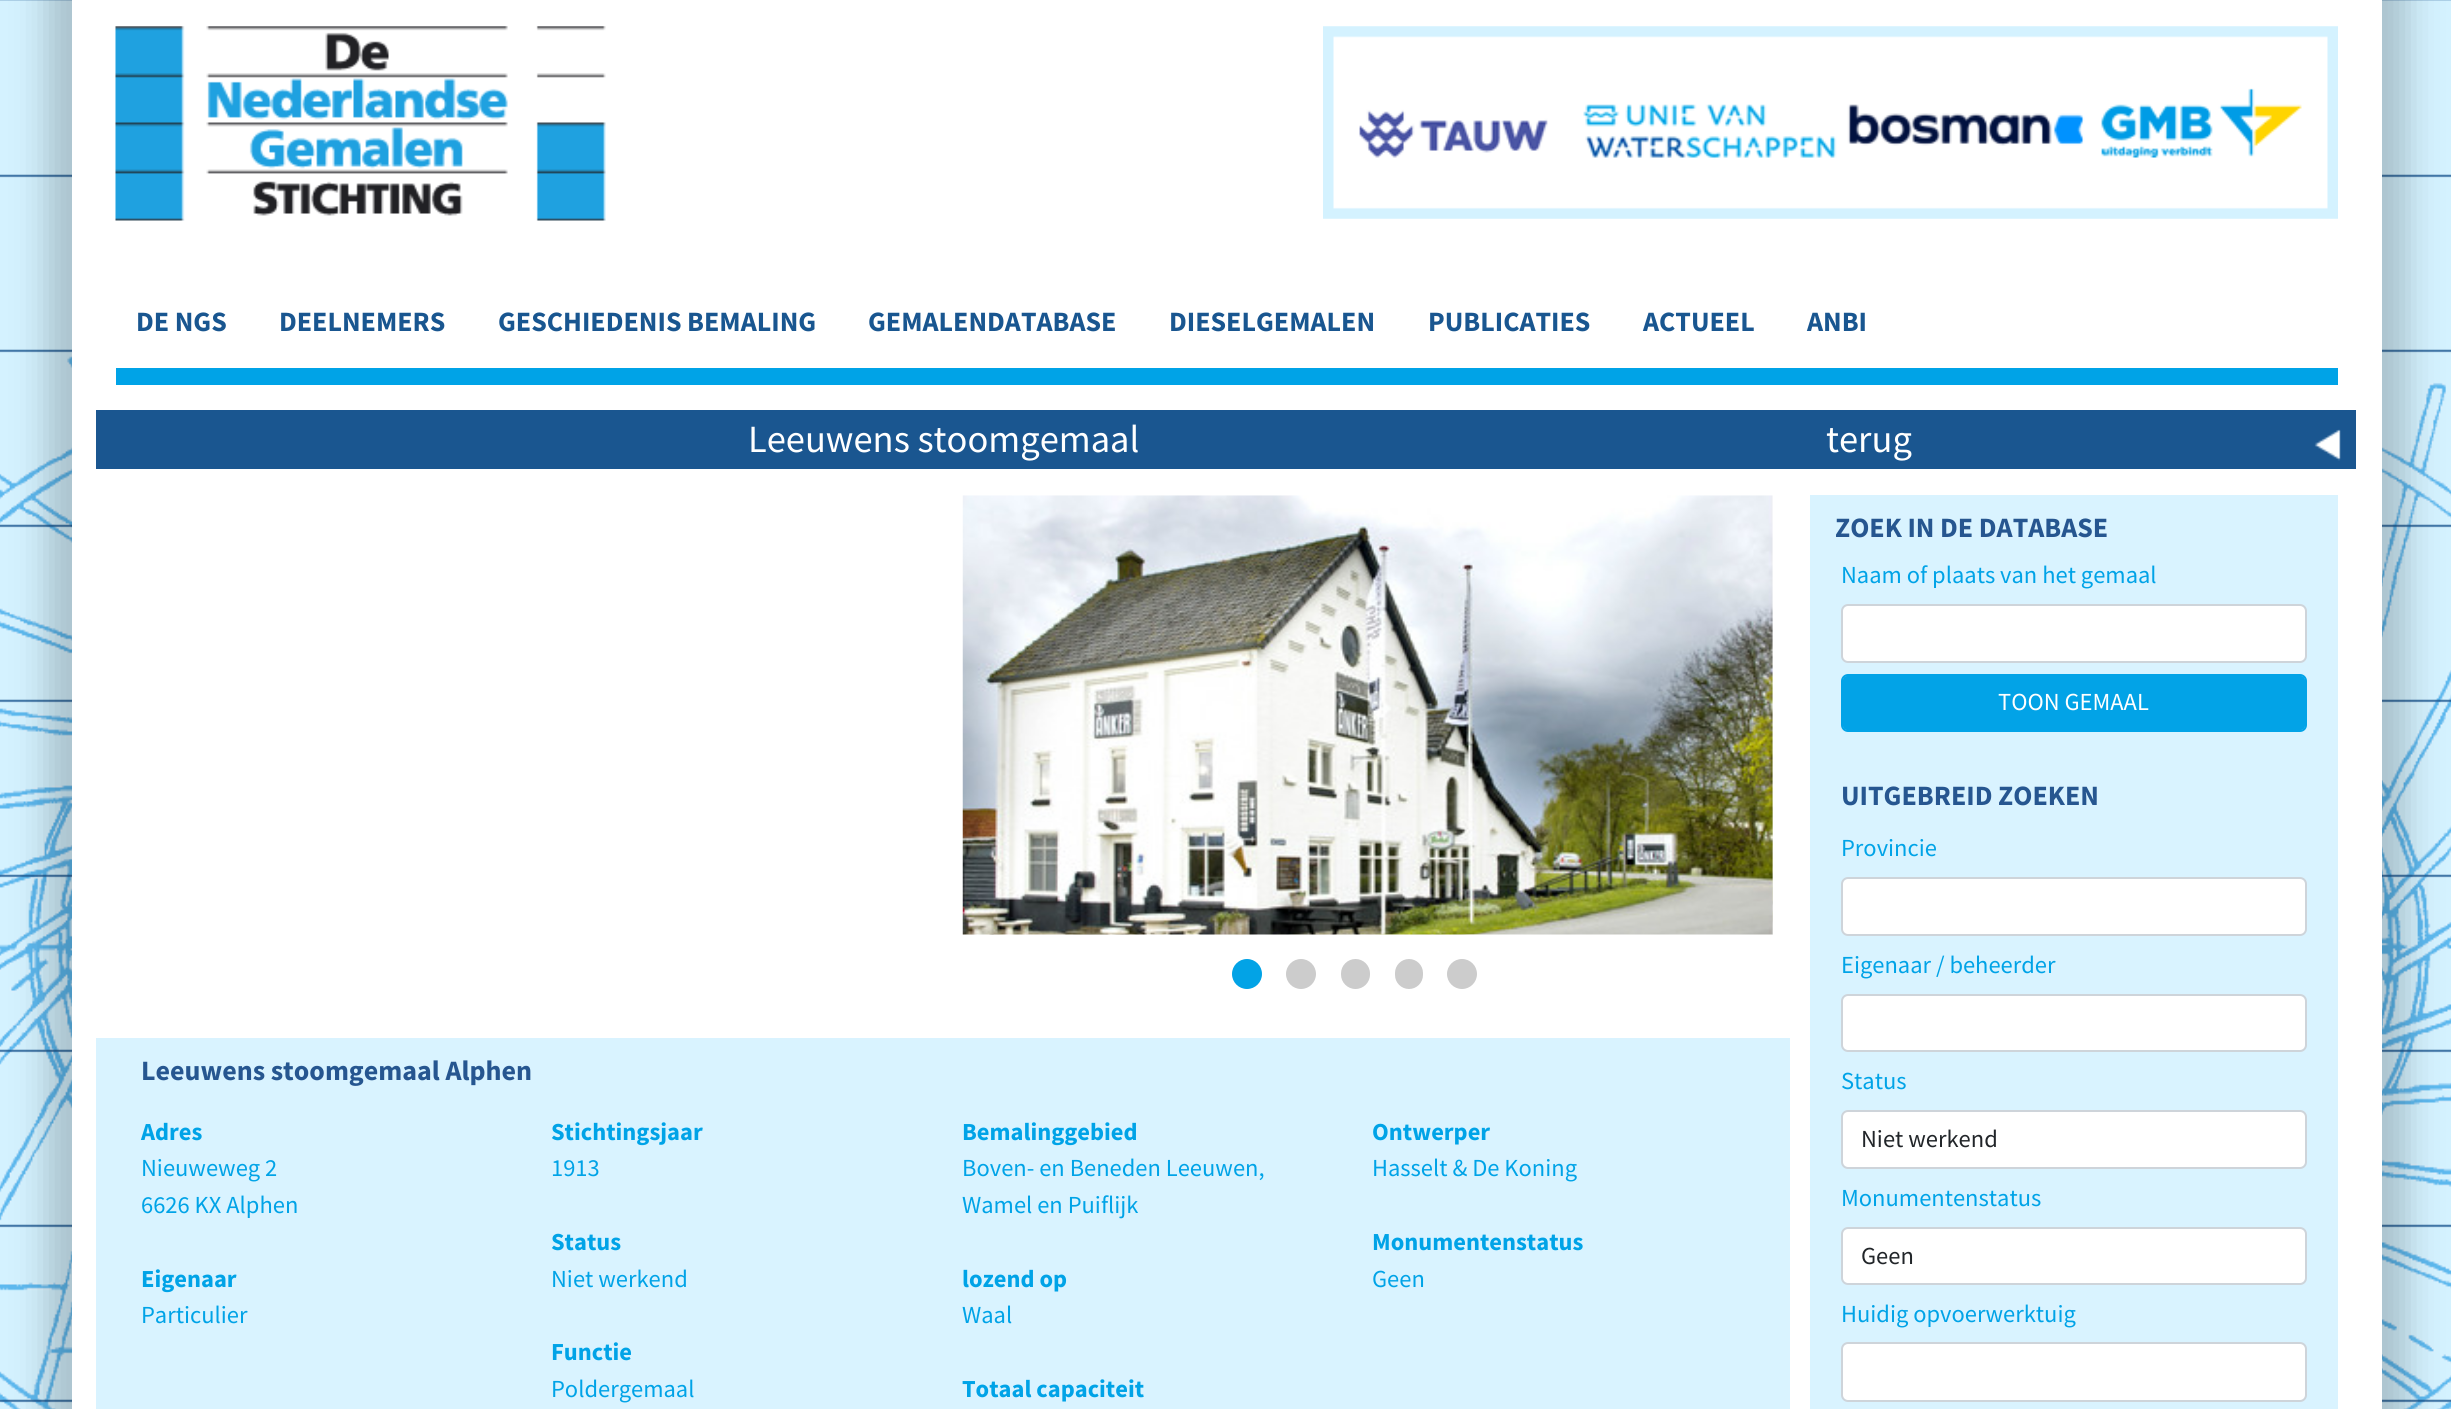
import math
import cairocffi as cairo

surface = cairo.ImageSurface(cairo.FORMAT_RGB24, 2451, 1409)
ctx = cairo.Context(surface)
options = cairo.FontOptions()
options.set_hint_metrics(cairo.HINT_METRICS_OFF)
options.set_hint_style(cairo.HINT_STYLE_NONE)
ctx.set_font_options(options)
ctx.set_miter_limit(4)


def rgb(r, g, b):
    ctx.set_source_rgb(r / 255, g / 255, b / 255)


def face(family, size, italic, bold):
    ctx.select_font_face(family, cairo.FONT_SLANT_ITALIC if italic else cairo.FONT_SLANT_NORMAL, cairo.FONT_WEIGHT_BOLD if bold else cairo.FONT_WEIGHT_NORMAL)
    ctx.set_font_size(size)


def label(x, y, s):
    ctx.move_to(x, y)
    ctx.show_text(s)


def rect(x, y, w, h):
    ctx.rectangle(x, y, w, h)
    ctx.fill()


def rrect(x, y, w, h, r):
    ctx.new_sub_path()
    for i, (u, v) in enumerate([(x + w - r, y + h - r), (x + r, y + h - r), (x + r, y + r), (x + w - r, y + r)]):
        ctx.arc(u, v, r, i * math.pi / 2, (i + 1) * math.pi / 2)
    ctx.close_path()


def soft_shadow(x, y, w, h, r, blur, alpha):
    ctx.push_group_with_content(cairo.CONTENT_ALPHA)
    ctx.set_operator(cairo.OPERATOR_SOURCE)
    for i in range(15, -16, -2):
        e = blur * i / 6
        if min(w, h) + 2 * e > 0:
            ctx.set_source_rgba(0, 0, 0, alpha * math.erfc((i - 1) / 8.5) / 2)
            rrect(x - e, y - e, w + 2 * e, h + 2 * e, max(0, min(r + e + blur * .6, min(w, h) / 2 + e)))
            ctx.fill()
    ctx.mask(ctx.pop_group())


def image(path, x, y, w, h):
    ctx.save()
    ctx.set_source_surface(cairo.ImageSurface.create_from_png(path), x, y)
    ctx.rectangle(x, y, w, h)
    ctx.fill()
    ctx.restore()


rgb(212, 242, 255)
ctx.paint()
image('image0.png', 0, 354, 2451, 1055)
image('image1.png', 0, 0, 2451, 1403)
rgb(0, 0, 0)
soft_shadow(46, -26, 2362, 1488, 0, 17.5, 0.2)
rgb(255, 255, 255)
rect(72, 0, 2310, 1409)
image('image2.png', 115, 26, 491, 195)
image('image3.png', 1323, 26, 1015, 193)
face('Source Sans Pro', 28, 0, 1)
rgb(25, 86, 144)
label(136, 331, 'DE NGS')
label(279, 331, 'DEELNEMERS')
label(498, 331, 'GESCHIEDENIS BEMALING')
label(868, 331, 'GEMALENDATABASE')
label(1169, 331, 'DIESELGEMALEN')
label(1428, 331, 'PUBLICATIES')
label(1643, 331, 'ACTUEEL')
label(1807, 331, 'ANBI')
rgb(0, 163, 231)
rect(116, 368, 2222, 17)
rgb(26, 86, 144)
rect(96, 410, 2260, 59)
face('Source Sans Pro', 38.5, 0, 0)
rgb(255, 255, 255)
label(748, 452, 'Leeuwens stoomgemaal')
image('image4.png', 2314, 429, 27, 32)
label(1826, 452, 'terug')
image('image6.png', 1772, 610, 1, 325)
image('image5.png', 962, 495, 811, 440)
rgb(2, 163, 230)
ctx.arc(1247, 974, 15, 0, 2 * math.pi)
ctx.fill()
rgb(204, 204, 204)
ctx.arc(1301, 974, 15, 0, 2 * math.pi)
ctx.fill()
rrect(1341, 959, 29, 30, 14.5)
ctx.fill()
rrect(1395, 959, 28, 30, 14)
ctx.fill()
ctx.arc(1462, 974, 15, 0, 2 * math.pi)
ctx.fill()
rgb(217, 243, 255)
rect(96, 1038, 1694, 371)
face('Source Sans Pro', 28, 0, 1)
rgb(38, 86, 144)
label(141, 1080, 'Leeuwens stoomgemaal Alphen')
face('Source Sans Pro', 24.5, 0, 1)
rgb(0, 163, 231)
label(141, 1140, 'Adres')
face('Source Sans Pro', 24.5, 0, 0)
label(141, 1176, 'Nieuweweg 2')
label(141, 1213, '6626 KX Alphen')
face('Source Sans Pro', 24.5, 0, 1)
label(141, 1287, 'Eigenaar')
face('Source Sans Pro', 24.5, 0, 0)
label(141, 1323, 'Particulier')
face('Source Sans Pro', 24.5, 0, 1)
label(551, 1140, 'Stichtingsjaar')
face('Source Sans Pro', 24.5, 0, 0)
label(551, 1176, '1913')
face('Source Sans Pro', 24.5, 0, 1)
label(551, 1250, 'Status')
face('Source Sans Pro', 24.5, 0, 0)
label(551, 1287, 'Niet werkend')
face('Source Sans Pro', 24.5, 0, 1)
label(551, 1360, 'Functie')
face('Source Sans Pro', 24.5, 0, 0)
label(551, 1397, 'Poldergemaal')
face('Source Sans Pro', 24.5, 0, 1)
label(962, 1140, 'Bemalinggebied')
face('Source Sans Pro', 24.5, 0, 0)
label(962, 1176, 'Boven- en Beneden Leeuwen,')
label(962, 1213, 'Wamel en Puiflijk')
face('Source Sans Pro', 24.5, 0, 1)
label(962, 1287, 'lozend op')
face('Source Sans Pro', 24.5, 0, 0)
label(962, 1323, 'Waal')
face('Source Sans Pro', 24.5, 0, 1)
label(962, 1397, 'Totaal capaciteit')
label(1372, 1140, 'Ontwerper')
face('Source Sans Pro', 24.5, 0, 0)
label(1372, 1176, 'Hasselt & De Koning')
face('Source Sans Pro', 24.5, 0, 1)
label(1372, 1250, 'Monumentenstatus')
face('Source Sans Pro', 24.5, 0, 0)
label(1372, 1287, 'Geen')
rgb(217, 243, 255)
rect(1810, 495, 528, 914)
face('Source Sans Pro', 28, 0, 1)
rgb(38, 86, 144)
label(1835, 537, 'ZOEK IN DE DATABASE')
face('Source Sans Pro', 24.5, 0, 0)
rgb(0, 163, 231)
label(1841, 583, 'Naam of plaats van het gemaal')
rgb(255, 255, 255)
rrect(1843, 606, 462, 56, 4)
ctx.fill()
rrect(1842, 605, 464, 57, 6)
rgb(206, 212, 218)
ctx.stroke()
rgb(2, 163, 231)
rrect(1843, 676, 462, 54, 4)
ctx.fill()
rrect(1842, 675, 464, 56, 6)
ctx.stroke()
rgb(255, 255, 255)
label(1998, 710, 'TOON GEMAAL')
face('Source Sans Pro', 28, 0, 1)
rgb(38, 86, 144)
label(1841, 805, 'UITGEBREID ZOEKEN')
face('Source Sans Pro', 24.5, 0, 0)
rgb(0, 163, 231)
label(1841, 856, 'Provincie')
rgb(255, 255, 255)
rrect(1843, 879, 462, 56, 4)
ctx.fill()
rrect(1842, 878, 464, 57, 6)
rgb(206, 212, 218)
ctx.stroke()
rgb(0, 163, 231)
label(1841, 973, 'Eigenaar / beheerder')
rgb(255, 255, 255)
rrect(1843, 996, 462, 54, 4)
ctx.fill()
rrect(1842, 995, 464, 56, 6)
rgb(206, 212, 218)
ctx.stroke()
rgb(0, 163, 231)
label(1841, 1089, 'Status')
rgb(255, 255, 255)
rrect(1843, 1111, 462, 56, 4)
ctx.fill()
rrect(1842, 1111, 464, 57, 6)
rgb(206, 212, 218)
ctx.stroke()
rgb(33, 37, 41)
label(1861, 1147, 'Niet werkend')
rgb(0, 163, 231)
label(1841, 1206, 'Monumentenstatus')
rgb(255, 255, 255)
rrect(1843, 1229, 462, 54, 4)
ctx.fill()
rrect(1842, 1228, 464, 56, 6)
rgb(206, 212, 218)
ctx.stroke()
rgb(33, 37, 41)
label(1861, 1264, 'Geen')
rgb(0, 163, 231)
label(1841, 1322, 'Huidig opvoerwerktuig')
rgb(255, 255, 255)
rrect(1843, 1344, 462, 56, 4)
ctx.fill()
rrect(1842, 1343, 464, 58, 6)
rgb(206, 212, 218)
ctx.stroke()
surface.write_to_png('render.png')
